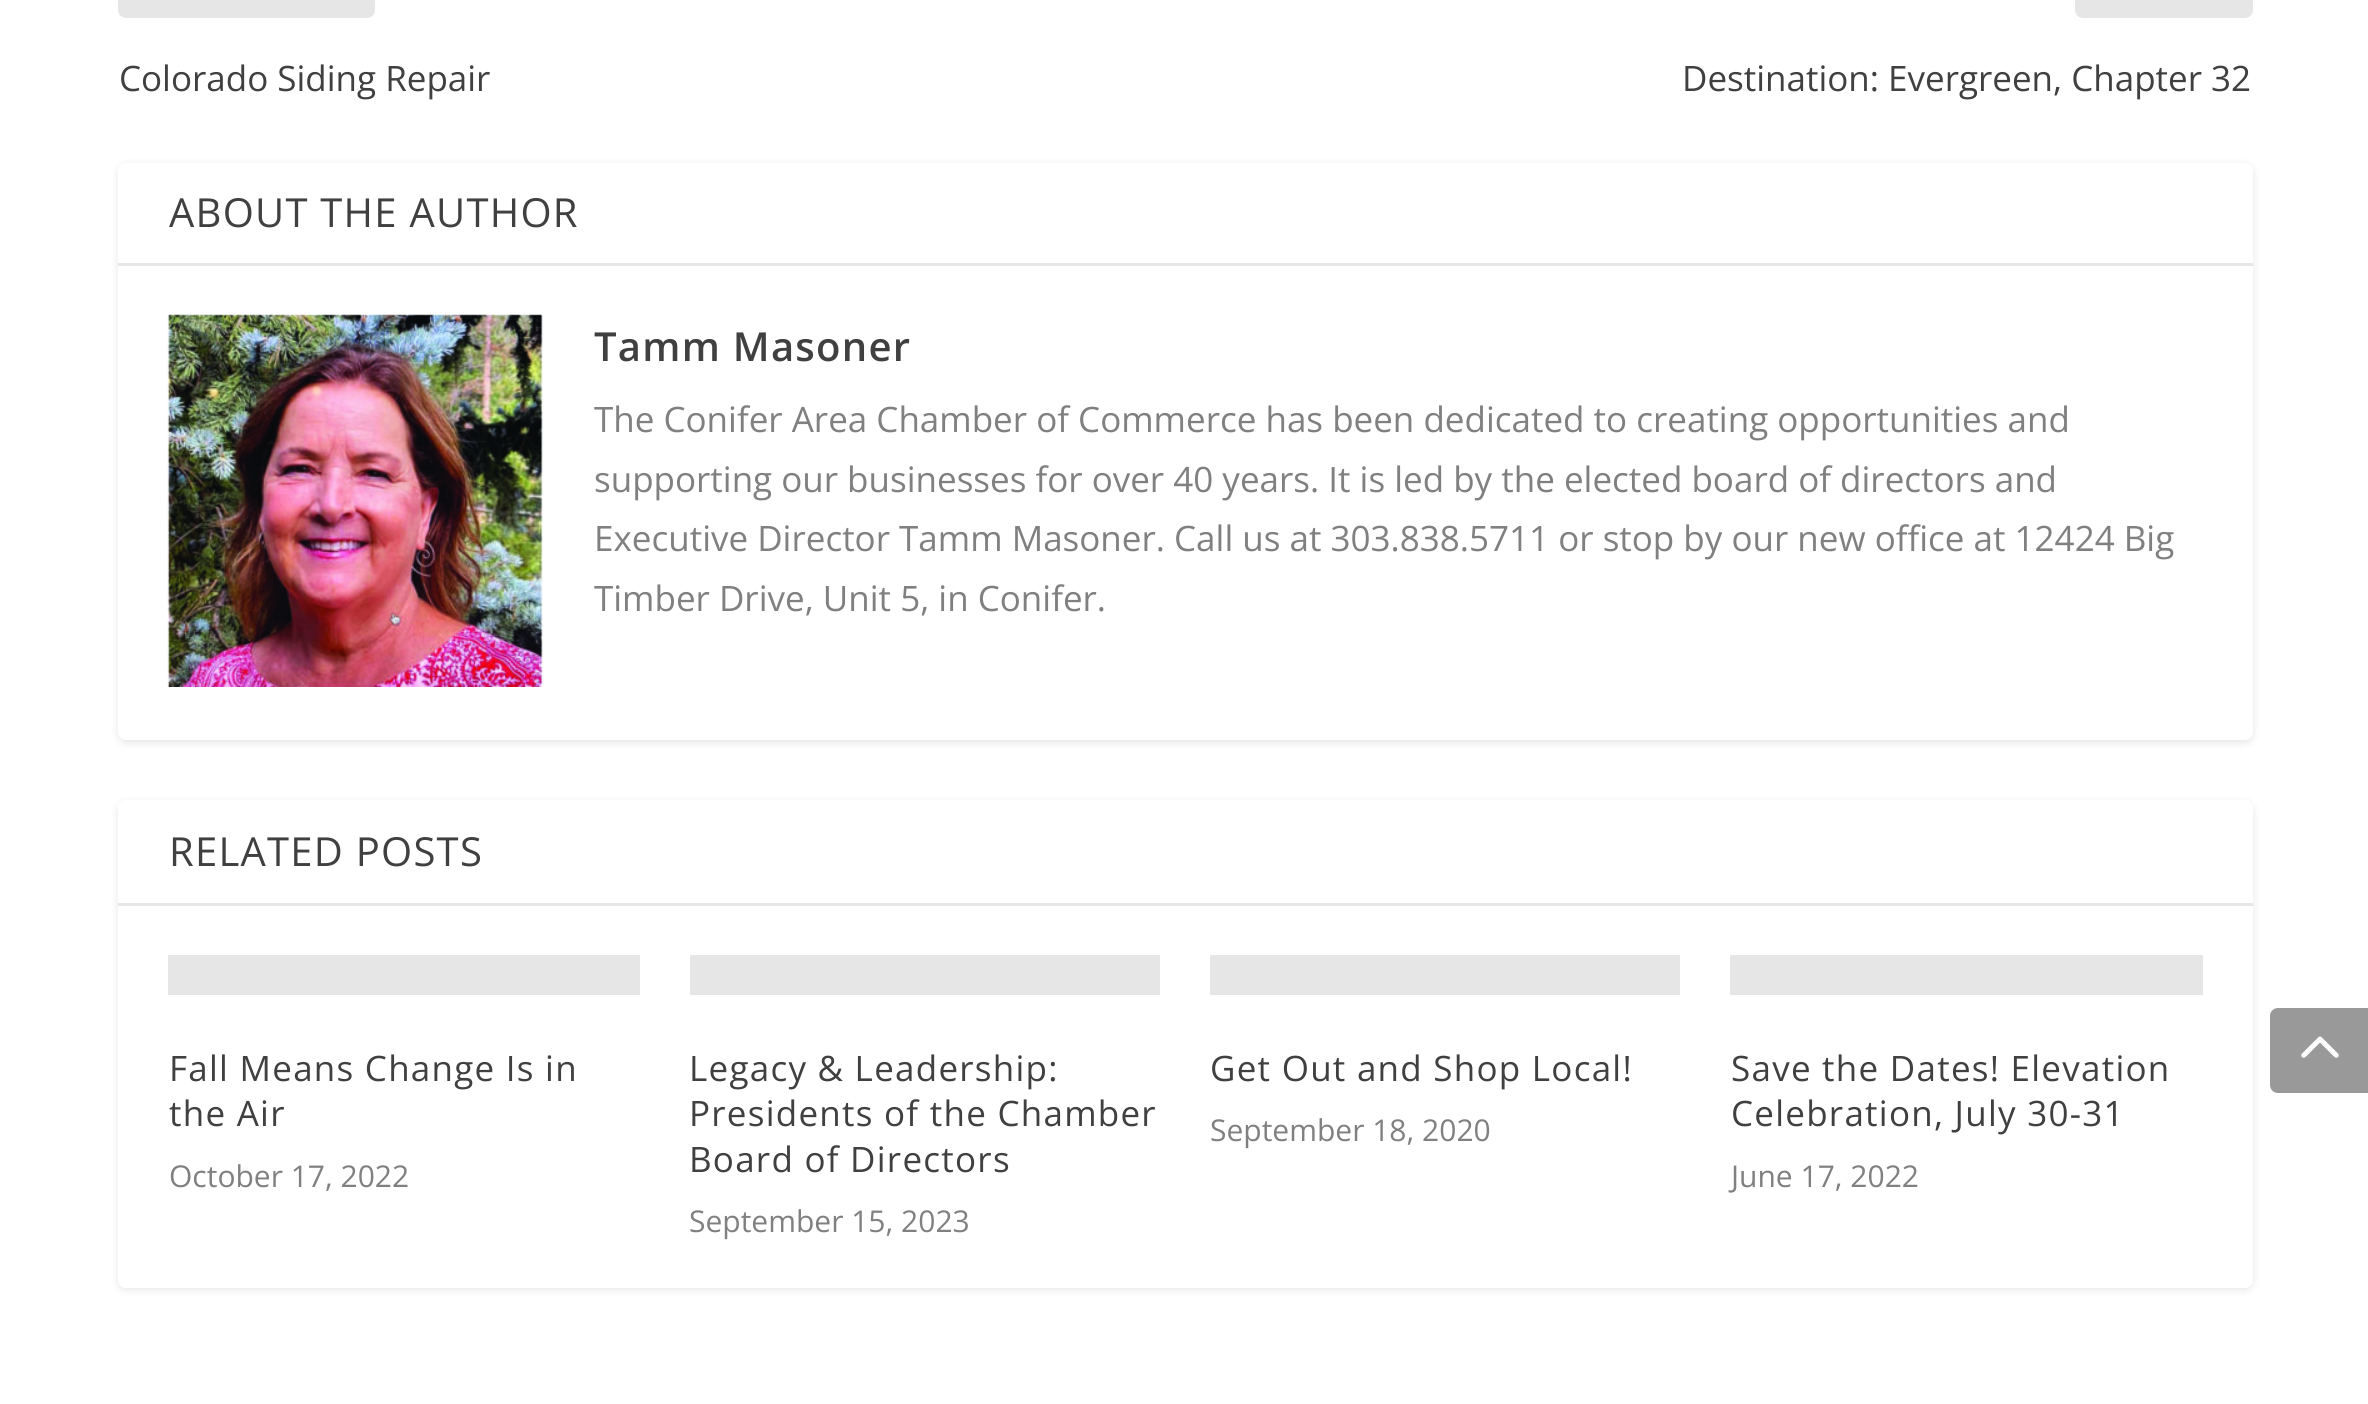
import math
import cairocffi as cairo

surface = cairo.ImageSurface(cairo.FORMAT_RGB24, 2368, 1404)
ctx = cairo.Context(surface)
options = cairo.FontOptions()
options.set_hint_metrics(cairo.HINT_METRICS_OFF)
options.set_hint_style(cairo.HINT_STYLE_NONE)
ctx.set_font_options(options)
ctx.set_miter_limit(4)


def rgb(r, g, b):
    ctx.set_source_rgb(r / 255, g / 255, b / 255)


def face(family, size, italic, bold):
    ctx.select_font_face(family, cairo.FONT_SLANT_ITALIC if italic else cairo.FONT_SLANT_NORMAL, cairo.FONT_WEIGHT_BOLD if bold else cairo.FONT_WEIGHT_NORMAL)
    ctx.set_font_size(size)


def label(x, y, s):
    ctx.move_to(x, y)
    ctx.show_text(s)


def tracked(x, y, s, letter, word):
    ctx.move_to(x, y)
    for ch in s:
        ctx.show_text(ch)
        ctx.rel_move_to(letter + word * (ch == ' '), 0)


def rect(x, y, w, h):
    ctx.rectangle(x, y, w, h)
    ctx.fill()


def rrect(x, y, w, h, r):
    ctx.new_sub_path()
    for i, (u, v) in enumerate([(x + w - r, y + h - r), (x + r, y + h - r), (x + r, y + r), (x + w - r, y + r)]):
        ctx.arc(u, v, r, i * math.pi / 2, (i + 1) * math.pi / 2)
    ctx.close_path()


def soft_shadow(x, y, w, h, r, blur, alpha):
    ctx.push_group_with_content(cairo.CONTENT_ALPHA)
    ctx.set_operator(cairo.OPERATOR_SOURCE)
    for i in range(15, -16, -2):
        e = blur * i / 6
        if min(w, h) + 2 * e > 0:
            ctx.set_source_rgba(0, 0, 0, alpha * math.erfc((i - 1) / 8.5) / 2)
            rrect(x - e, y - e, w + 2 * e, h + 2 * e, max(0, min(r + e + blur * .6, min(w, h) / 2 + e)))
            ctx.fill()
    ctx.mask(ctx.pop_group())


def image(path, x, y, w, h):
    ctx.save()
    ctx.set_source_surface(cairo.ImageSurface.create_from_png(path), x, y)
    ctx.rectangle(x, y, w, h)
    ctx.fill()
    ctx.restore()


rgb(255, 255, 255)
ctx.paint()
rgb(230, 230, 230)
rrect(118, -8, 257, 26, 8)
ctx.fill()
face('Open Sans', 35, 0, 0)
rgb(64, 64, 64)
label(119, 91, 'Colorado Siding Repair')
rgb(230, 230, 230)
rrect(2075, -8, 178, 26, 8)
ctx.fill()
rgb(64, 64, 64)
label(1682, 91, 'Destination: Evergreen, Chapter 32')
rgb(0, 0, 0)
soft_shadow(118, 165, 2135, 578, 8, 4, 0.1)
rgb(255, 255, 255)
rrect(118, 163, 2135, 577, 8)
ctx.fill()
rgb(230, 230, 230)
rect(118, 263, 2135, 3)
face('Open Sans', 40, 0, 0)
rgb(64, 64, 64)
tracked(169, 227, 'ABOUT THE AUTHOR', 1.25, 0)
image('image0.png', 167, 314, 376, 373)
face('Open Sans SemiBold', 40, 0, 0)
tracked(594, 361, 'Tamm Masoner', 1.25, 0)
face('Open Sans', 35, 0, 0)
rgb(128, 128, 128)
label(594, 432, 'The Conifer Area Chamber of Commerce has been dedicated to creating opportunities and')
label(594, 492, 'supporting our businesses for over 40 years. It is led by the elected board of directors and')
label(594, 551, 'Executive Director Tamm Masoner. Call us at 303.838.5711 or stop by our new office at 12424 Big')
label(594, 611, 'Timber Drive, Unit 5, in Conifer.')
rgb(0, 0, 0)
soft_shadow(118, 803, 2135, 487, 8, 4, 0.1)
rgb(255, 255, 255)
rrect(118, 800, 2135, 488, 8)
ctx.fill()
rgb(230, 230, 230)
rect(118, 903, 2135, 3)
face('Open Sans', 40, 0, 0)
rgb(64, 64, 64)
tracked(169, 866, 'RELATED POSTS', 1.25, 0)
rgb(230, 230, 230)
rect(168, 955, 472, 40)
face('Open Sans', 35, 0, 0)
rgb(64, 64, 64)
tracked(169, 1081, 'Fall Means Change Is in', 1.25, 0)
tracked(169, 1126, 'the Air', 1.25, 0)
face('Open Sans', 30, 0, 0)
rgb(128, 128, 128)
label(169, 1187, 'October 17, 2022')
rgb(230, 230, 230)
rect(690, 955, 470, 40)
face('Open Sans', 35, 0, 0)
rgb(64, 64, 64)
tracked(689, 1081, 'Legacy & Leadership:', 1.25, 0)
tracked(689, 1126, 'Presidents of the Chamber', 1.25, 0)
tracked(689, 1172, 'Board of Directors', 1.25, 0)
face('Open Sans', 30, 0, 0)
rgb(128, 128, 128)
label(689, 1232, 'September 15, 2023')
rgb(230, 230, 230)
rect(1210, 955, 470, 40)
face('Open Sans', 35, 0, 0)
rgb(64, 64, 64)
tracked(1210, 1081, 'Get Out and Shop Local!', 1.25, 0)
face('Open Sans', 30, 0, 0)
rgb(128, 128, 128)
label(1210, 1141, 'September 18, 2020')
rgb(230, 230, 230)
rect(1730, 955, 473, 40)
face('Open Sans', 35, 0, 0)
rgb(64, 64, 64)
tracked(1731, 1081, 'Save the Dates! Elevation', 1.25, 0)
tracked(1731, 1126, 'Celebration, July 30-31', 1.25, 0)
face('Open Sans', 30, 0, 0)
rgb(128, 128, 128)
label(1731, 1187, 'June 17, 2022')
rgb(153, 153, 153)
ctx.new_path()
ctx.move_to(2278, 1008)
ctx.line_to(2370, 1008)
ctx.line_to(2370, 1093)
ctx.line_to(2278, 1093)
ctx.curve_to(2273.5, 1093, 2270, 1089.5, 2270, 1085)
ctx.line_to(2270, 1016)
ctx.curve_to(2270, 1011.5, 2273.5, 1008, 2278, 1008)
ctx.close_path()
ctx.fill()
image('image1.png', 2301, 1036, 38, 22)
surface.write_to_png('render.png')
